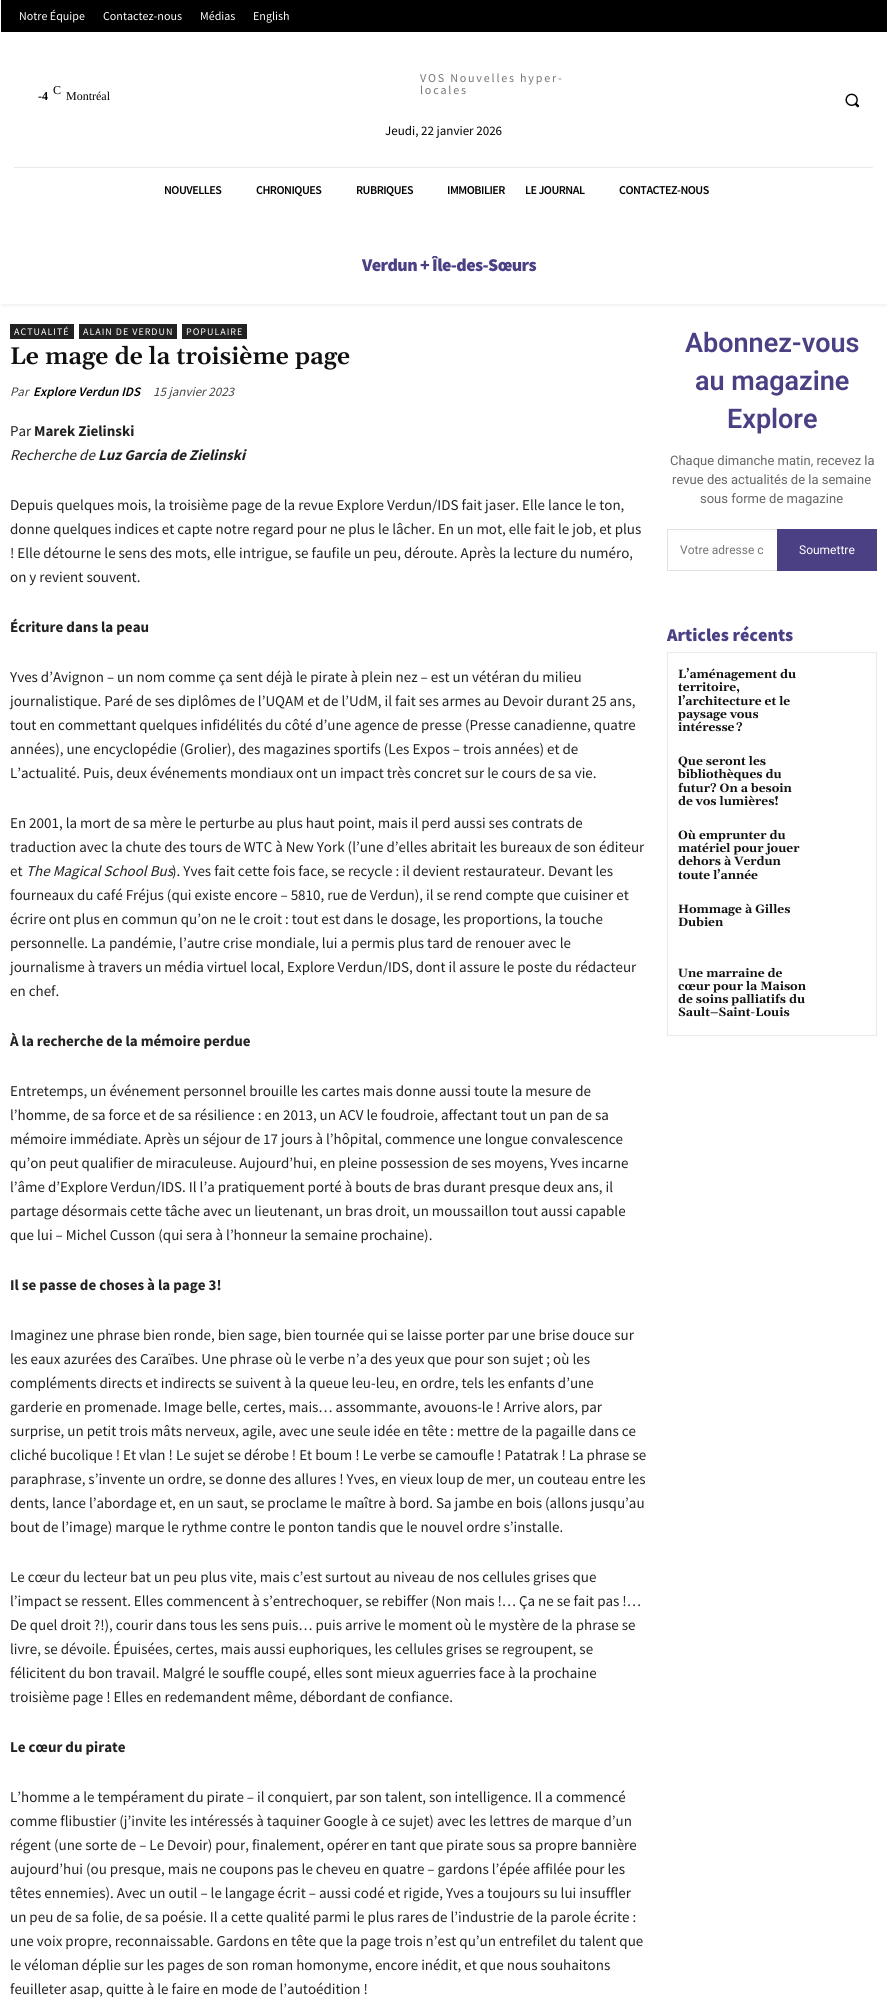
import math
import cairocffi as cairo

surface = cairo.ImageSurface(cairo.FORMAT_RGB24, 887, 2007)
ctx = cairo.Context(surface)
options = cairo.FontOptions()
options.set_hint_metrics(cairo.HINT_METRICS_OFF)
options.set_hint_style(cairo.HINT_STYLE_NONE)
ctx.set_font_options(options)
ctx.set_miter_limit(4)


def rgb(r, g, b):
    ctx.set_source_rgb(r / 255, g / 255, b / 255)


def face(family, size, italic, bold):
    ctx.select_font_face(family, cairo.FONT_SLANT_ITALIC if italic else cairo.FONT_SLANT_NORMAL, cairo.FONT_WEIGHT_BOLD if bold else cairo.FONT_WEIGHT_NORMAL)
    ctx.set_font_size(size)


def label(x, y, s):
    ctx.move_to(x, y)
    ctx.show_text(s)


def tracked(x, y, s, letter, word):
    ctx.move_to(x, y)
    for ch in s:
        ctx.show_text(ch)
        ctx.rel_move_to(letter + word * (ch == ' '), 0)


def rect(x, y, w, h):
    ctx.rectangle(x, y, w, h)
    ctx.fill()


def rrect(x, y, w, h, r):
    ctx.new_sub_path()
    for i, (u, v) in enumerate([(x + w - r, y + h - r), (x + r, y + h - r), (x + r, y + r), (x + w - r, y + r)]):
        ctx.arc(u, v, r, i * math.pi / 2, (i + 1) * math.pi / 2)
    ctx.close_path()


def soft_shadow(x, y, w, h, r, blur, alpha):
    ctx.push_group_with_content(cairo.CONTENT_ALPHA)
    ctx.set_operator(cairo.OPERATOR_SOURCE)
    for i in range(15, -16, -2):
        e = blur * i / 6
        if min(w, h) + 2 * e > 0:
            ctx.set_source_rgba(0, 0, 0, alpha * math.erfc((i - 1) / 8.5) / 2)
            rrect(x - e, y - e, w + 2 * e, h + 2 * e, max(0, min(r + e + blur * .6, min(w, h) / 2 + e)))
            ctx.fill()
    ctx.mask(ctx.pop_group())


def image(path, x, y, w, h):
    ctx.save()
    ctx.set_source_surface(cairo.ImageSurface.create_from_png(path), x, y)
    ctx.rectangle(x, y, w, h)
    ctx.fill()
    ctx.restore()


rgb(255, 255, 255)
ctx.paint()
rgb(0, 0, 0)
rect(1, 0, 886, 32)
face('Source Sans Pro', 12, 0, 0)
rgb(255, 255, 255)
label(19, 20, 'Notre Équipe')
label(103, 20, 'Contactez-nous')
label(200, 20, 'Médias')
label(253, 20, 'English')
face('Liberation Serif', 12, 0, 0)
rgb(0, 0, 0)
label(53, 94, 'C')
face('Liberation Serif', 12, 0, 1)
label(38, 100, '-4')
face('Liberation Serif', 12, 0, 0)
label(66, 100, 'Montréal')
face('Source Sans Pro', 12, 0, 0)
rgb(117, 117, 117)
tracked(420, 82, 'VOS Nouvelles hyper-', 1.8, 0)
tracked(420, 94, 'locales', 1.8, 0)
face('Source Sans Pro', 13, 0, 0)
rgb(0, 0, 0)
label(385, 135, 'Jeudi, 22 janvier 2026')
image('image0.png', 845, 93, 15, 15)
rgb(234, 234, 234)
rect(14, 167, 859, 1)
ctx.save()
ctx.rectangle(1, 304, 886, 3)
ctx.clip()
rgb(0, 0, 0)
soft_shadow(1, 139, 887, 167, 0, 2, 0.06)
ctx.restore()
face('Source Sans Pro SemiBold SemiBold', 12, 0, 0)
rgb(0, 0, 0)
tracked(164, 194, 'NOUVELLES', -0.5, 0)
tracked(256, 194, 'CHRONIQUES', -0.5, 0)
tracked(356, 194, 'RUBRIQUES', -0.5, 0)
tracked(447, 194, 'IMMOBILIER', -0.5, 0)
tracked(525, 194, 'LE JOURNAL', -0.5, 0)
tracked(619, 194, 'CONTACTEZ-NOUS', -0.5, 0)
face('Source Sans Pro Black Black', 18, 0, 0)
rgb(76, 64, 132)
tracked(362, 271, 'Verdun + Île-des-Sœurs', -0.6, 0)
rgb(34, 34, 34)
rect(10, 324, 64, 15)
face('Source Sans Pro', 10, 0, 0)
rgb(255, 255, 255)
tracked(14, 335, 'ACTUALITÉ', 1, 0)
rgb(34, 34, 34)
rect(79, 324, 98, 15)
rgb(255, 255, 255)
tracked(83, 335, 'ALAIN DE VERDUN', 1, 0)
rgb(34, 34, 34)
rect(182, 324, 65, 15)
rgb(255, 255, 255)
tracked(186, 335, 'POPULAIRE', 1, 0)
face('Gelasio SemiBold', 24, 0, 0)
rgb(17, 17, 17)
label(10, 364, 'Le mage de la troisième page')
face('Source Sans Pro', 13, 1, 0)
rgb(68, 68, 68)
label(10, 396, 'Par')
face('Source Sans Pro SemiBold SemiBold', 13, 1, 0)
rgb(0, 0, 0)
label(33, 396, 'Explore Verdun IDS')
face('Source Sans Pro', 13, 1, 0)
rgb(68, 68, 68)
label(153, 396, '15 janvier 2023')
face('Source Sans Pro', 15, 0, 0)
rgb(34, 34, 34)
label(10, 436, 'Par')
face('Source Sans Pro', 15, 0, 1)
label(34, 436, 'Marek Zielinski')
face('Source Sans Pro', 15, 1, 0)
label(10, 460, 'Recherche de')
face('Source Sans Pro', 15, 1, 1)
label(98, 460, 'Luz Garcia de Zielinski')
face('Source Sans Pro', 15, 0, 0)
label(10, 510, 'Depuis quelques mois, la troisième page de la revue Explore Verdun/IDS fait jaser. Elle lance le ton,')
label(10, 534, 'donne quelques indices et capte notre regard pour ne plus le lâcher. En un mot, elle fait le job, et plus')
label(10, 558, '! Elle détourne le sens des mots, elle intrigue, se faufile un peu, déroute. Après la lecture du numéro,')
label(10, 582, 'on y revient souvent.')
face('Source Sans Pro', 15, 0, 1)
label(10, 632, 'Écriture dans la peau')
face('Source Sans Pro', 15, 0, 0)
label(10, 682, 'Yves d’Avignon – un nom comme ça sent déjà le pirate à plein nez – est un vétéran du milieu')
label(10, 706, 'journalistique. Paré de ses diplômes de l’UQAM et de l’UdM, il fait ses armes au Devoir durant 25 ans,')
label(10, 730, 'tout en commettant quelques infidélités du côté d’une agence de presse (Presse canadienne, quatre')
label(10, 754, 'années), une encyclopédie (Grolier), des magazines sportifs (Les Expos – trois années) et de')
label(10, 778, 'L’actualité. Puis, deux événements mondiaux ont un impact très concret sur le cours de sa vie.')
label(10, 828, 'En 2001, la mort de sa mère le perturbe au plus haut point, mais il perd aussi ses contrats de')
label(10, 852, 'traduction avec la chute des tours de WTC à New York (l’une d’elles abritait les bureaux de son éditeur')
label(10, 876, 'et')
face('Source Sans Pro', 15, 1, 0)
label(26, 876, 'The Magical School Bus')
face('Source Sans Pro', 15, 0, 0)
label(172, 876, '). Yves fait cette fois face, se recycle : il devient restaurateur. Devant les')
label(10, 900, 'fourneaux du café Fréjus (qui existe encore – 5810, rue de Verdun), il se rend compte que cuisiner et')
label(10, 924, 'écrire ont plus en commun qu’on ne le croit : tout est dans le dosage, les proportions, la touche')
label(10, 948, 'personnelle. La pandémie, l’autre crise mondiale, lui a permis plus tard de renouer avec le')
label(10, 972, 'journalisme à travers un média virtuel local, Explore Verdun/IDS, dont il assure le poste du rédacteur')
label(10, 996, 'en chef.')
face('Source Sans Pro', 15, 0, 1)
label(10, 1046, 'À la recherche de la mémoire perdue')
face('Source Sans Pro', 15, 0, 0)
label(10, 1096, 'Entretemps, un événement personnel brouille les cartes mais donne aussi toute la mesure de')
label(10, 1120, 'l’homme, de sa force et de sa résilience : en 2013, un ACV le foudroie, affectant tout un pan de sa')
label(10, 1144, 'mémoire immédiate. Après un séjour de 17 jours à l’hôpital, commence une longue convalescence')
label(10, 1168, 'qu’on peut qualifier de miraculeuse. Aujourd’hui, en pleine possession de ses moyens, Yves incarne')
label(10, 1192, 'l’âme d’Explore Verdun/IDS. Il l’a pratiquement porté à bouts de bras durant presque deux ans, il')
label(10, 1216, 'partage désormais cette tâche avec un lieutenant, un bras droit, un moussaillon tout aussi capable')
label(10, 1240, 'que lui – Michel Cusson (qui sera à l’honneur la semaine prochaine).')
face('Source Sans Pro', 15, 0, 1)
label(10, 1290, 'Il se passe de choses à la page 3!')
face('Source Sans Pro', 15, 0, 0)
label(10, 1340, 'Imaginez une phrase bien ronde, bien sage, bien tournée qui se laisse porter par une brise douce sur')
label(10, 1364, 'les eaux azurées des Caraïbes. Une phrase où le verbe n’a des yeux que pour son sujet ; où les')
label(10, 1388, 'compléments directs et indirects se suivent à la queue leu-leu, en ordre, tels les enfants d’une')
label(10, 1412, 'garderie en promenade. Image belle, certes, mais… assommante, avouons-le ! Arrive alors, par')
label(10, 1436, 'surprise, un petit trois mâts nerveux, agile, avec une seule idée en tête : mettre de la pagaille dans ce')
label(10, 1460, 'cliché bucolique ! Et vlan ! Le sujet se dérobe ! Et boum ! Le verbe se camoufle ! Patatrak ! La phrase se')
label(10, 1484, 'paraphrase, s’invente un ordre, se donne des allures ! Yves, en vieux loup de mer, un couteau entre les')
label(10, 1508, 'dents, lance l’abordage et, en un saut, se proclame le maître à bord. Sa jambe en bois (allons jusqu’au')
label(10, 1532, 'bout de l’image) marque le rythme contre le ponton tandis que le nouvel ordre s’installe.')
label(10, 1582, 'Le cœur du lecteur bat un peu plus vite, mais c’est surtout au niveau de nos cellules grises que')
label(10, 1606, 'l’impact se ressent. Elles commencent à s’entrechoquer, se rebiffer (Non mais !… Ça ne se fait pas !…')
label(10, 1630, 'De quel droit ?!), courir dans tous les sens puis… puis arrive le moment où le mystère de la phrase se')
label(10, 1654, 'livre, se dévoile. Épuisées, certes, mais aussi euphoriques, les cellules grises se regroupent, se')
label(10, 1678, 'félicitent du bon travail. Malgré le souffle coupé, elles sont mieux aguerries face à la prochaine')
label(10, 1702, 'troisième page ! Elles en redemandent même, débordant de confiance.')
face('Source Sans Pro', 15, 0, 1)
label(10, 1752, 'Le cœur du pirate')
face('Source Sans Pro', 15, 0, 0)
label(10, 1802, 'L’homme a le tempérament du pirate – il conquiert, par son talent, son intelligence. Il a commencé')
label(10, 1826, 'comme flibustier (j’invite les intéressés à taquiner Google à ce sujet) avec les lettres de marque d’un')
label(10, 1850, 'régent (une sorte de – Le Devoir) pour, finalement, opérer en tant que pirate sous sa propre bannière')
label(10, 1874, 'aujourd’hui (ou presque, mais ne coupons pas le cheveu en quatre – gardons l’épée affilée pour les')
label(10, 1898, 'têtes ennemies). Avec un outil – le langage écrit – aussi codé et rigide, Yves a toujours su lui insuffler')
label(10, 1922, 'un peu de sa folie, de sa poésie. Il a cette qualité parmi le plus rares de l’industrie de la parole écrite :')
label(10, 1946, 'une voix propre, reconnaissable. Gardons en tête que la page trois n’est qu’un entrefilet du talent que')
label(10, 1970, 'le véloman déplie sur les pages de son roman homonyme, encore inédit, et que nous souhaitons')
label(10, 1994, 'feuilleter asap, quitte à le faire en mode de l’autoédition !')
face('Roboto SemiBold', 27, 0, 0)
rgb(76, 64, 132)
label(685, 352, 'Abonnez-vous')
label(695, 390, 'au magazine')
label(727, 428, 'Explore')
face('Roboto', 13, 0, 0)
rgb(102, 102, 102)
label(670, 465, 'Chaque dimanche matin, recevez la')
label(672, 484, 'revue des actualités de la semaine')
label(700, 503, 'sous forme de magazine')
rgb(225, 225, 225)
rect(667, 529, 110, 1)
rect(667, 570, 110, 1)
rect(667, 529, 1, 42)
face('Roboto', 12, 0, 0)
rgb(117, 117, 117)
label(680, 554, 'Votre adresse c')
rgb(76, 64, 132)
rect(777, 529, 100, 42)
rgb(255, 255, 255)
label(799, 554, 'Soumettre')
face('Source Sans Pro Black Black', 18, 0, 0)
rgb(76, 64, 132)
label(667, 641, 'Articles récents')
ctx.rectangle(667.5, 652.5, 209, 383)
rgb(234, 234, 234)
ctx.set_line_width(1)
ctx.stroke()
face('Gelasio', 12, 0, 1)
rgb(17, 17, 17)
label(678, 678, 'L’aménagement du')
label(678, 691, 'territoire,')
label(678, 705, 'l’architecture et le')
label(678, 718, 'paysage vous')
label(678, 731, 'intéresse ?')
label(678, 765, 'Que seront les')
label(678, 778, 'bibliothèques du')
label(678, 792, 'futur? On a besoin')
label(678, 805, 'de vos lumières!')
label(678, 839, 'Où emprunter du')
label(678, 852, 'matériel pour jouer')
label(678, 865, 'dehors à Verdun')
label(678, 879, 'toute l’année')
label(678, 913, 'Hommage à Gilles')
label(678, 926, 'Dubien')
label(678, 977, 'Une marraine de')
label(678, 990, 'cœur pour la Maison')
label(678, 1003, 'de soins palliatifs du')
label(678, 1016, 'Sault–Saint-Louis')
surface.write_to_png('render.png')
